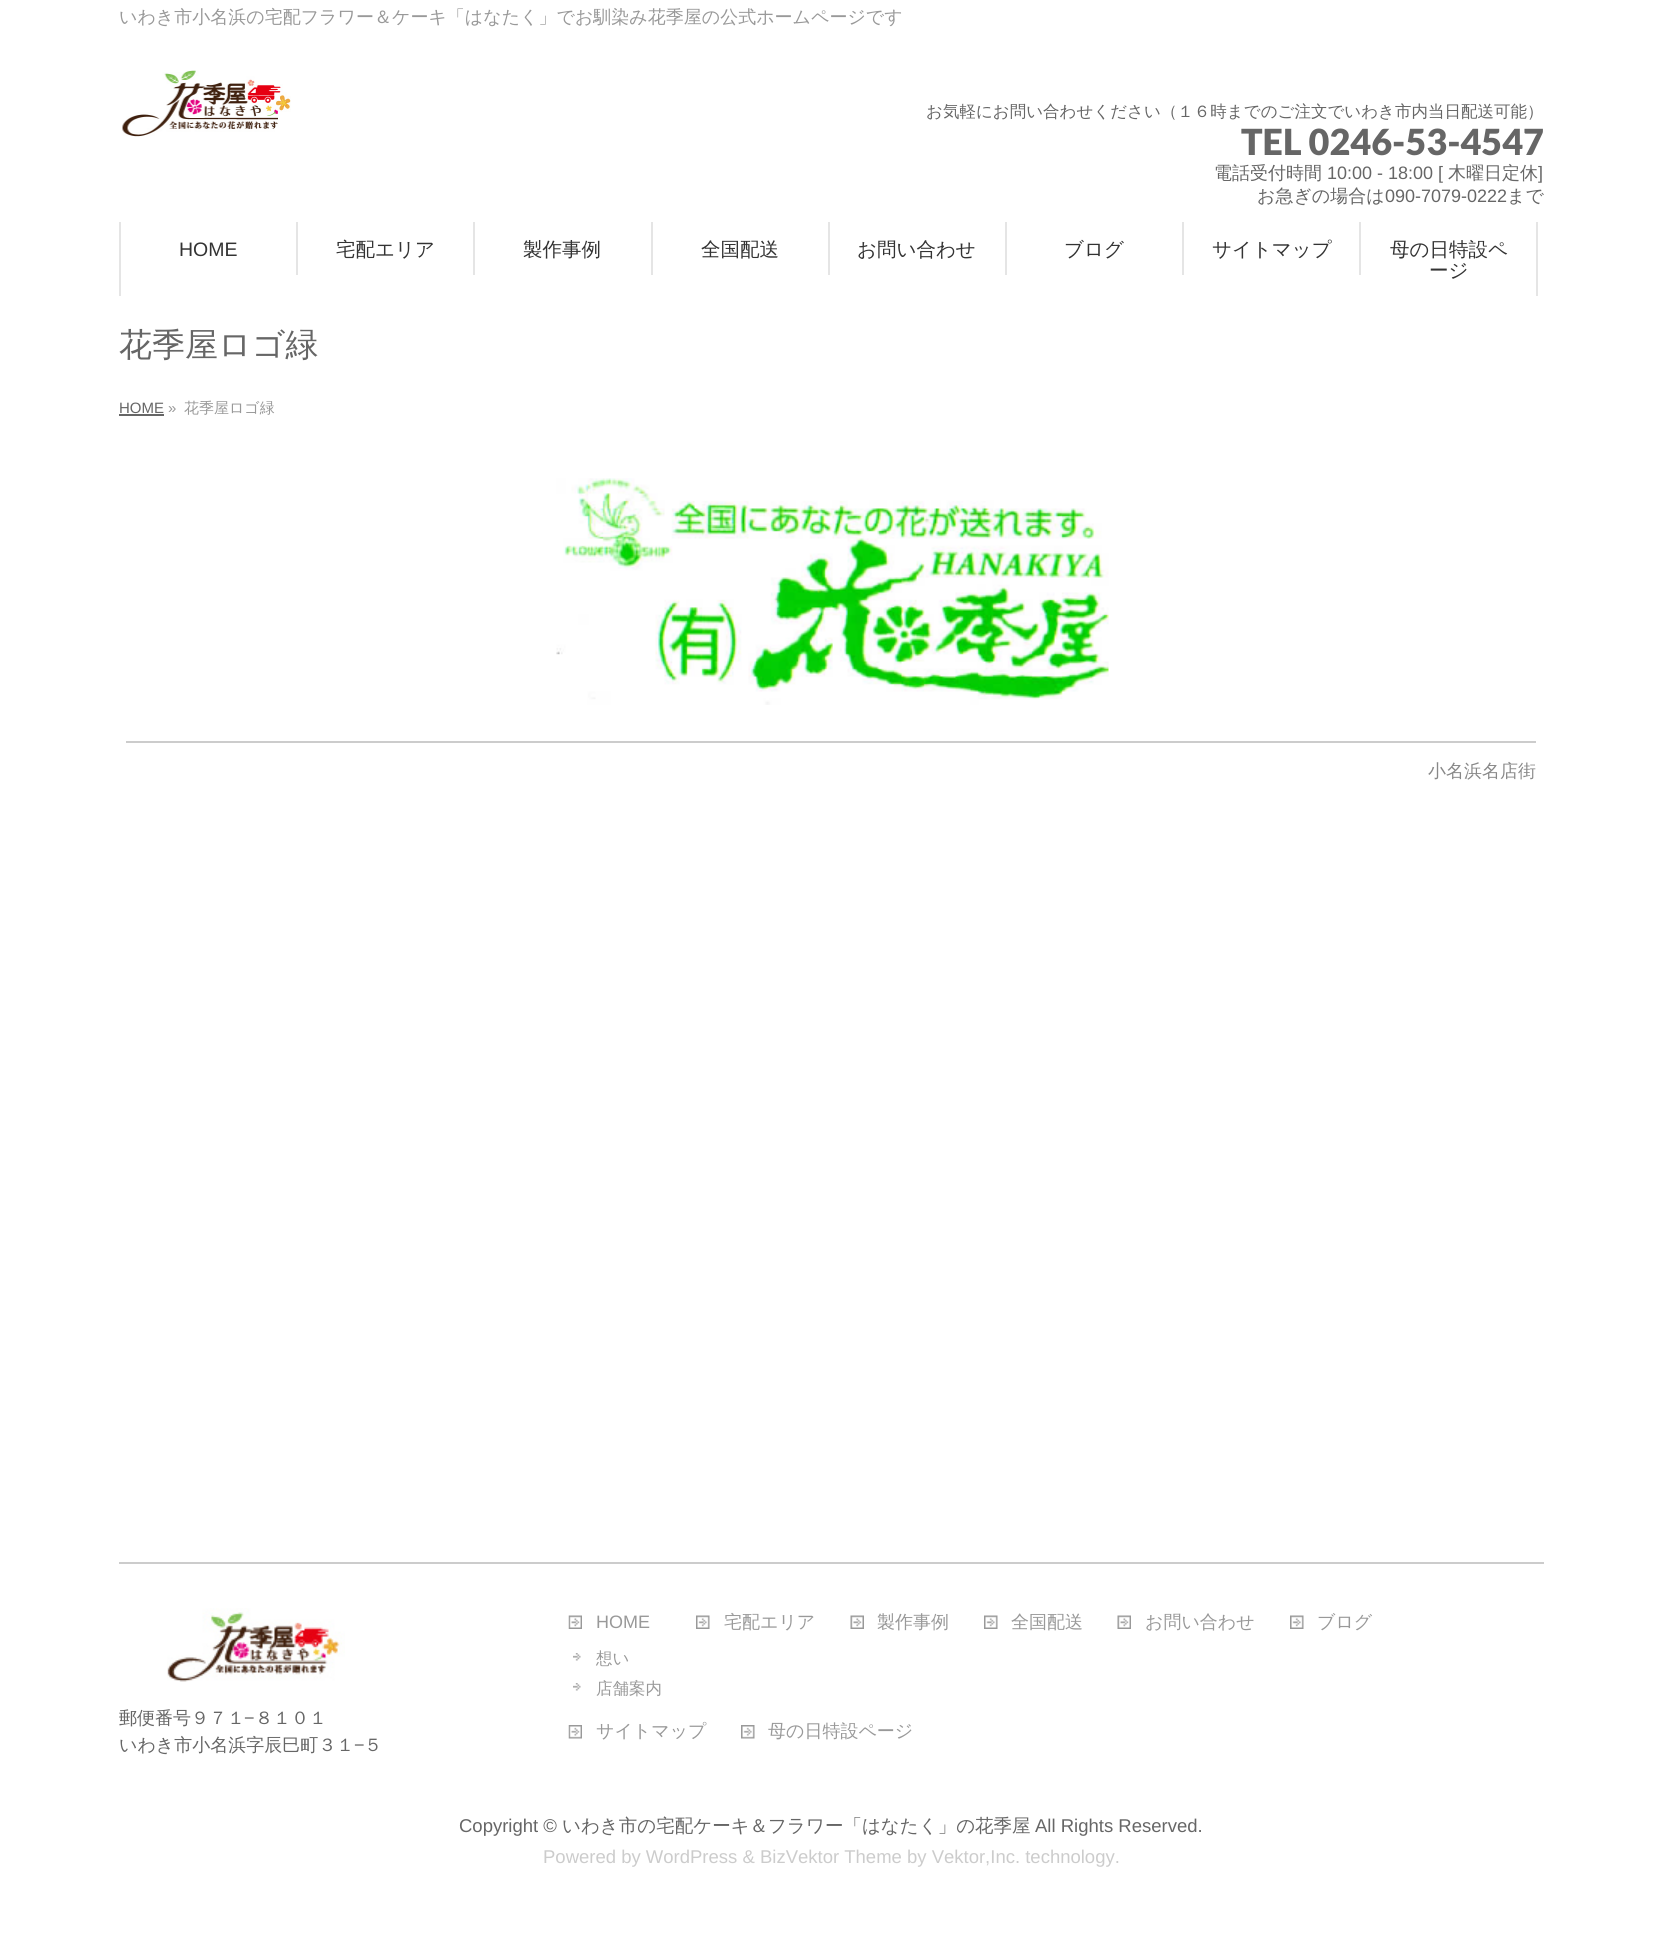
import math
import cairocffi as cairo

surface = cairo.ImageSurface(cairo.FORMAT_RGB24, 1662, 1935)
ctx = cairo.Context(surface)
options = cairo.FontOptions()
options.set_hint_metrics(cairo.HINT_METRICS_OFF)
options.set_hint_style(cairo.HINT_STYLE_NONE)
ctx.set_font_options(options)
ctx.set_miter_limit(4)


def rgb(r, g, b):
    ctx.set_source_rgb(r / 255, g / 255, b / 255)


def face(family, size, italic, bold):
    ctx.select_font_face(family, cairo.FONT_SLANT_ITALIC if italic else cairo.FONT_SLANT_NORMAL, cairo.FONT_WEIGHT_BOLD if bold else cairo.FONT_WEIGHT_NORMAL)
    ctx.set_font_size(size)


def label(x, y, s):
    ctx.move_to(x, y)
    ctx.show_text(s)


def rect(x, y, w, h):
    ctx.rectangle(x, y, w, h)
    ctx.fill()


def image(path, x, y, w, h):
    ctx.save()
    ctx.set_source_surface(cairo.ImageSurface.create_from_png(path), x, y)
    ctx.rectangle(x, y, w, h)
    ctx.fill()
    ctx.restore()


rgb(255, 255, 255)
ctx.paint()
face('WenQuanYi Zen Hei Medium', 18, 0, 0)
rgb(153, 153, 153)
label(119, 23, 'いわき市小名浜の宅配フラワー＆ケーキ「はなたく」でお馴染み花季屋の公式ホームページです')
image('image0.png', 122, 70, 169, 67)
face('WenQuanYi Zen Hei Medium', 16.5, 0, 0)
rgb(102, 102, 102)
label(926, 117, 'お気軽にお問い合わせください（１６時までのご注文でいわき市内当日配送可能）')
face('Lato Black', 36, 0, 0)
label(1241, 155, 'TEL 0246-53-4547')
face('WenQuanYi Zen Hei Medium', 18, 0, 0)
label(1214, 179, '電話受付時間')
face('Liberation Sans', 18, 0, 0)
label(1327, 179, '10:00 - 18:00 [')
face('WenQuanYi Zen Hei Medium', 18, 0, 0)
label(1448, 179, '木曜日定休')
face('Liberation Sans', 18, 0, 0)
label(1538, 179, ']')
face('WenQuanYi Zen Hei Medium', 18, 0, 0)
label(1257, 202, 'お急ぎの場合は')
face('Liberation Sans', 18, 0, 0)
label(1385, 202, '090-7079-0222')
face('WenQuanYi Zen Hei Medium', 18, 0, 0)
label(1507, 202, 'まで')
rgb(229, 229, 229)
rect(119, 222, 2, 74)
rect(296, 222, 2, 53)
face('Liberation Sans', 19.5, 0, 0)
rgb(51, 51, 51)
label(179, 256, 'HOME')
rgb(229, 229, 229)
rect(473, 222, 2, 53)
face('WenQuanYi Zen Hei Medium', 19.5, 0, 0)
rgb(51, 51, 51)
label(336, 256, '宅配エリア')
rgb(229, 229, 229)
rect(651, 222, 2, 53)
rgb(51, 51, 51)
label(523, 256, '製作事例')
rgb(229, 229, 229)
rect(828, 222, 2, 53)
rgb(51, 51, 51)
label(701, 256, '全国配送')
rgb(229, 229, 229)
rect(1005, 222, 2, 53)
rgb(51, 51, 51)
label(857, 256, 'お問い合わせ')
rgb(229, 229, 229)
rect(1182, 222, 2, 53)
rgb(51, 51, 51)
label(1064, 256, 'ブログ')
rgb(229, 229, 229)
rect(1359, 222, 2, 53)
rgb(51, 51, 51)
label(1212, 256, 'サイトマップ')
rgb(229, 229, 229)
rect(1536, 222, 2, 74)
rgb(51, 51, 51)
label(1390, 256, '母の日特設ペ')
label(1429, 277, 'ージ')
face('WenQuanYi Zen Hei Medium', 33, 0, 0)
rgb(102, 102, 102)
label(119, 356, '花季屋ロゴ緑')
face('Liberation Sans', 15, 0, 0)
label(119, 413, 'HOME')
rect(119, 414, 45, 2)
rgb(153, 153, 153)
label(168, 413, '»')
face('WenQuanYi Zen Hei Medium', 15, 0, 0)
label(184, 413, '花季屋ロゴ緑')
image('image1.png', 556, 478, 553, 227)
rgb(204, 204, 204)
rect(126, 741, 1410, 2)
face('WenQuanYi Zen Hei Medium', 18, 0, 0)
rgb(136, 136, 136)
label(1428, 777, '小名浜名店街')
rgb(204, 204, 204)
rect(119, 1562, 1425, 2)
image('image2.png', 167, 1608, 178, 74)
rgb(102, 102, 102)
label(119, 1724, '郵便番号９７１')
face('Liberation Sans', 18, 0, 0)
label(244, 1724, '−')
face('WenQuanYi Zen Hei Medium', 18, 0, 0)
label(255, 1724, '８１０１')
label(119, 1751, 'いわき市小名浜字辰巳町３１')
face('Liberation Sans', 18, 0, 0)
label(354, 1751, '−')
face('WenQuanYi Zen Hei Medium', 18, 0, 0)
label(364, 1751, '５')
image('image3.png', 568, 1615, 14, 14)
face('Liberation Sans', 18, 0, 0)
rgb(153, 153, 153)
label(596, 1628, 'HOME')
image('image4.png', 573, 1653, 8, 8)
face('WenQuanYi Zen Hei Medium', 16.5, 0, 0)
label(596, 1664, '想い')
image('image4.png', 573, 1683, 8, 8)
label(596, 1694, '店舗案内')
image('image5.png', 696, 1615, 14, 14)
face('WenQuanYi Zen Hei Medium', 18, 0, 0)
label(724, 1628, '宅配エリア')
image('image6.png', 850, 1615, 14, 14)
label(877, 1628, '製作事例')
image('image5.png', 984, 1615, 14, 14)
label(1011, 1628, '全国配送')
image('image7.png', 1117, 1615, 14, 14)
label(1145, 1628, 'お問い合わせ')
image('image8.png', 1290, 1615, 14, 14)
label(1317, 1628, 'ブログ')
image('image9.png', 568, 1725, 14, 14)
label(596, 1737, 'サイトマップ')
image('image10.png', 741, 1725, 14, 14)
label(768, 1737, '母の日特設ページ')
face('Liberation Sans', 18.5, 0, 0)
rgb(102, 102, 102)
label(459, 1832, 'Copyright ©')
face('WenQuanYi Zen Hei Medium', 18.5, 0, 0)
label(562, 1832, 'いわき市の宅配ケーキ＆フラワー「はなたく」の花季屋')
face('Liberation Sans', 18.5, 0, 0)
label(1035, 1832, 'All Rights Reserved.')
rgb(204, 204, 204)
label(543, 1863, 'Powered by WordPress & BizVektor Theme by Vektor,Inc. technology.')
surface.write_to_png('render.png')
